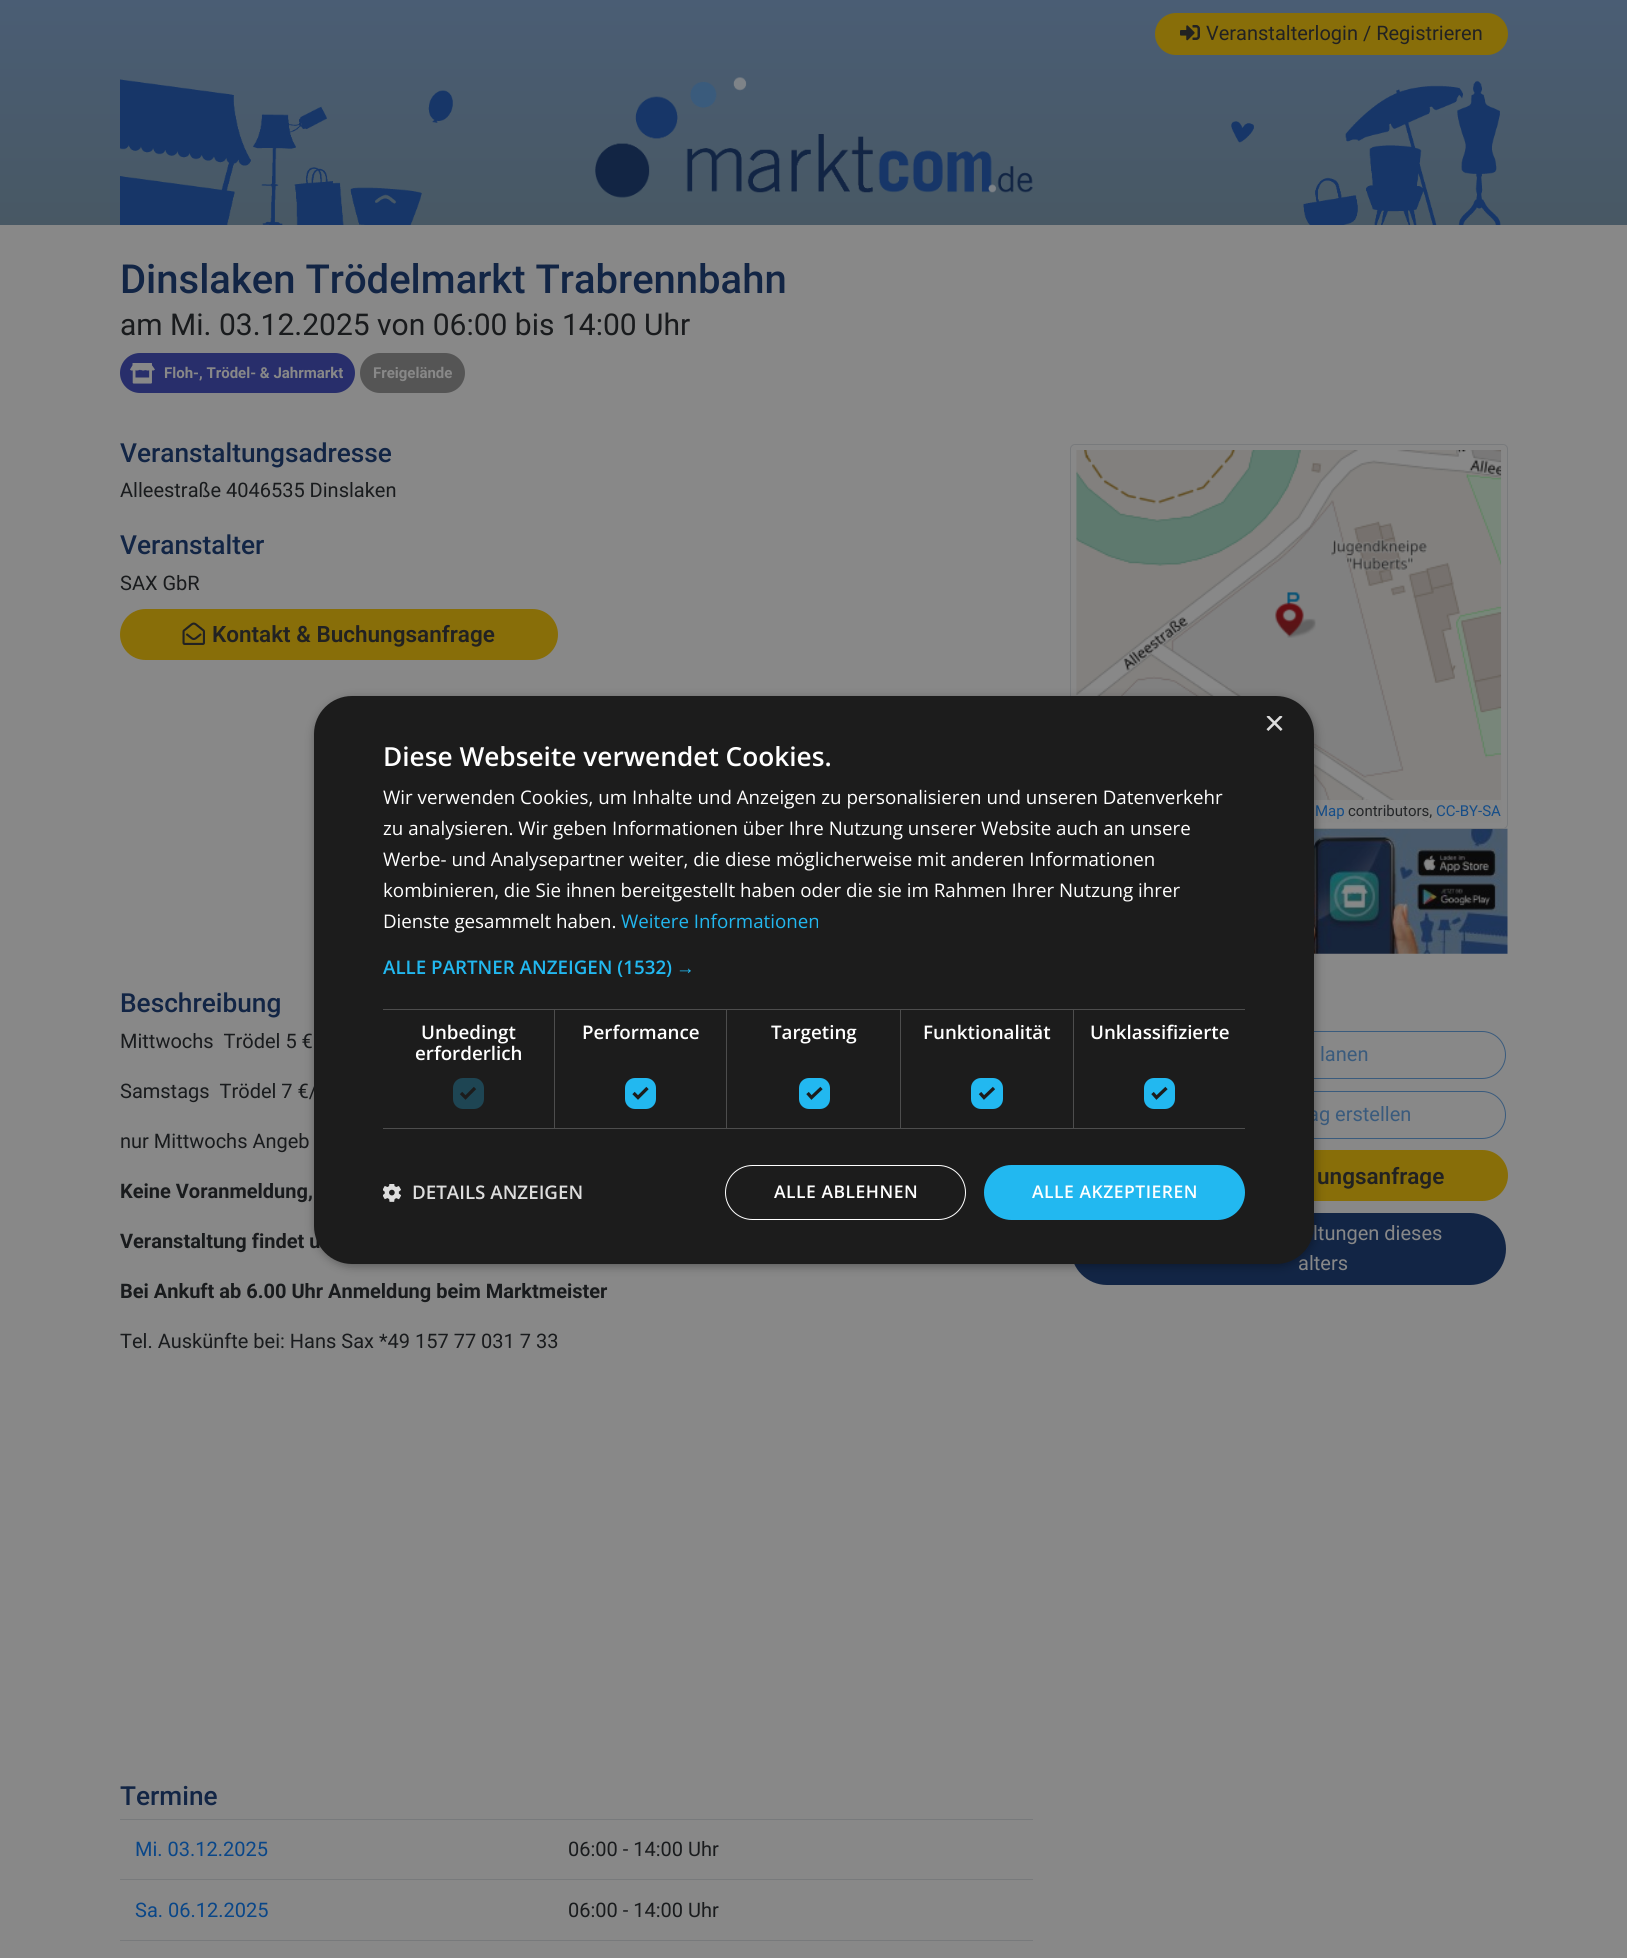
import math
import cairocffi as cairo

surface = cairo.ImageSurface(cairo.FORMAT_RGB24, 1627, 1958)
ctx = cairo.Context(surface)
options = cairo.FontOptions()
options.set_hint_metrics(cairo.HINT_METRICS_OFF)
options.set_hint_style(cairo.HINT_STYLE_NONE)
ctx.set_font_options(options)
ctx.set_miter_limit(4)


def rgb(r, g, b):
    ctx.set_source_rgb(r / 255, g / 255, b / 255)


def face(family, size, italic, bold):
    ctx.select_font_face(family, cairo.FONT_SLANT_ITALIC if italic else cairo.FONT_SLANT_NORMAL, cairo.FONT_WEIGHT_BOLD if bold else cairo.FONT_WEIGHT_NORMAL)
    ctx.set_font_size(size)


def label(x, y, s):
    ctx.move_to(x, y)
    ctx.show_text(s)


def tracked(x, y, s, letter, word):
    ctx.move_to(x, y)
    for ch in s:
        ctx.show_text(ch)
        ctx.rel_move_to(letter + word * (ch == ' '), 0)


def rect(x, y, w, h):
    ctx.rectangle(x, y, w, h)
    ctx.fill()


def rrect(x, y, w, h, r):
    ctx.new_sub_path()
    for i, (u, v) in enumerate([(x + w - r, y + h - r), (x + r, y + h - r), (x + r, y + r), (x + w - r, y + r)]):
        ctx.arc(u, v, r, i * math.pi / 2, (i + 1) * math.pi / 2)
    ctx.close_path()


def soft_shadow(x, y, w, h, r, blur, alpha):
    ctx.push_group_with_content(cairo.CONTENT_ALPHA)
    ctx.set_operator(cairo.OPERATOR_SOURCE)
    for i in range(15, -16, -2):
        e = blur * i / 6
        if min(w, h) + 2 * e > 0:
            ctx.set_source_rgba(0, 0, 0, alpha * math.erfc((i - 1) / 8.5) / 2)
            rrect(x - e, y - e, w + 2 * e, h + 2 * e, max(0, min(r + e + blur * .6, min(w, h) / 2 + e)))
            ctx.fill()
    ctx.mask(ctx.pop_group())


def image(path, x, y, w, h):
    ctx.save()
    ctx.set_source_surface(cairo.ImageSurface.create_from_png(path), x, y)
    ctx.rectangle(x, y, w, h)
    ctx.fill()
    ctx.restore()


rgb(136, 136, 136)
ctx.paint()
gradient = cairo.LinearGradient(814, 0, 814, 225)
gradient.add_color_stop_rgba(0, 0.29, 0.365, 0.455, 1)
gradient.add_color_stop_rgba(1, 0.282, 0.345, 0.392, 1)
ctx.set_source(gradient)
rect(0, 0, 1627, 225)
rgb(136, 110, 9)
rrect(1155, 13, 353, 42, 21)
ctx.fill()
image('image0.png', 1180, 25, 20, 16)
face('Roboto', 20, 0, 0)
rgb(34, 34, 34)
label(1206, 40, 'Veranstalterlogin / Registrieren')
image('image1.png', 120, 79, 333, 146)
image('image2.png', 595, 77, 438, 121)
image('image3.png', 1231, 80, 270, 145)
face('Roboto Medium', 40, 0, 0)
rgb(18, 37, 69)
label(120, 293, 'Dinslaken Trödelmarkt Trabrennbahn')
face('Roboto', 30, 0, 0)
rgb(25, 27, 29)
label(120, 335, 'am Mi. 03.12.2025 von 06:00 bis 14:00 Uhr')
rgb(40, 46, 107)
rrect(120, 353, 235, 40, 20)
ctx.fill()
image('image4.png', 130, 363, 25, 21)
face('Roboto', 15, 0, 1)
rgb(136, 136, 136)
label(164, 378, 'Floh-, Trödel- & Jahrmarkt')
rgb(85, 85, 85)
rrect(360, 353, 105, 40, 20)
ctx.fill()
rgb(136, 136, 136)
label(373, 378, 'Freigelände')
face('Roboto Medium', 26.25, 0, 0)
rgb(18, 37, 69)
label(120, 462, 'Veranstaltungsadresse')
face('Roboto', 20, 0, 0)
rgb(25, 27, 29)
label(120, 497, 'Alleestraße 4046535 Dinslaken')
face('Roboto Medium', 26.25, 0, 0)
rgb(18, 37, 69)
label(120, 554, 'Veranstalter')
face('Roboto', 20, 0, 0)
rgb(25, 27, 29)
label(120, 590, 'SAX GbR')
rgb(136, 110, 9)
rrect(120, 609, 438, 51, 25.5)
ctx.fill()
image('image5.png', 182, 622, 23, 23)
face('Roboto SemiBold', 22.5, 0, 0)
rgb(34, 34, 34)
label(212, 642, 'Kontakt & Buchungsanfrage')
image('image7.png', 1314, 828, 194, 126)
rgb(136, 136, 136)
rrect(1070.5, 444.5, 437, 384, 4.5)
ctx.fill_preserve()
rgb(120, 122, 124)
ctx.set_line_width(1)
ctx.stroke()
image('image6.png', 1076, 450, 426, 373)
ctx.set_source_rgba(0.533, 0.533, 0.533, 0.9)
rect(1314, 800, 187, 23)
face('Roboto', 15, 0, 0)
rgb(21, 77, 136)
label(1315, 816, 'Map')
rgb(36, 38, 40)
label(1348, 816, 'contributors,')
rgb(21, 77, 136)
label(1436, 816, 'CC-BY-SA')
face('Roboto Medium', 26.25, 0, 0)
rgb(18, 37, 69)
label(120, 1012, 'Beschreibung')
face('Roboto', 20, 0, 0)
rgb(25, 27, 29)
label(120, 1048, 'Mittwochs  Trödel 5 €')
label(120, 1098, 'Samstags  Trödel 7 €/')
label(120, 1148, 'nur Mittwochs Angeb')
face('Roboto', 20, 0, 1)
label(120, 1198, 'Keine Voranmeldung,')
label(120, 1248, 'Veranstaltung findet u')
label(120, 1298, 'Bei Ankuft ab 6.00 Uhr Anmeldung beim Marktmeister')
face('Roboto', 20, 0, 0)
label(120, 1348, 'Tel. Auskünfte bei: Hans Sax *49 157 77 031 7 33')
face('Roboto Medium', 26.25, 0, 0)
rgb(18, 37, 69)
label(120, 1805, 'Termine')
face('Roboto', 20, 0, 0)
rgb(9, 70, 136)
label(135, 1856, 'Mi. 03.12.2025')
rgb(120, 122, 124)
rect(120, 1819, 913, 1)
rgb(25, 27, 29)
label(568, 1856, '06:00 - 14:00 Uhr')
rgb(9, 70, 136)
label(135, 1917, 'Sa. 06.12.2025')
rgb(120, 122, 124)
rect(120, 1879, 913, 1)
rgb(25, 27, 29)
label(568, 1917, '06:00 - 14:00 Uhr')
rgb(120, 122, 124)
rect(120, 1940, 913, 1)
rrect(1071.5, 1031.5, 434, 47, 23.5)
rgb(58, 91, 125)
ctx.stroke()
label(1320, 1061, 'lanen')
rrect(1071.5, 1091.5, 434, 47, 23.5)
ctx.stroke()
label(1308, 1121, 'ag erstellen')
rgb(136, 110, 9)
rrect(1070, 1150, 438, 51, 25.5)
ctx.fill()
face('Roboto SemiBold', 22.5, 0, 0)
rgb(34, 34, 34)
label(1317, 1184, 'ungsanfrage')
rgb(18, 37, 69)
rrect(1071, 1213, 435, 72, 36)
ctx.fill()
face('Roboto', 20, 0, 0)
rgb(136, 136, 136)
label(1313, 1240, 'ltungen dieses')
label(1298, 1270, 'alters')
rgb(0, 0, 0)
soft_shadow(315, 699, 1000, 567, 38, 5, 0.35)
rgb(28, 28, 28)
rrect(314, 696, 1000, 568, 38)
ctx.fill()
ctx.save()
ctx.rectangle(1264, 716, 19, 19)
ctx.clip()
face('Liberation Sans', 36, 0, 0)
rgb(221, 221, 221)
label(1264, 735, '×')
ctx.restore()
face('Open Sans SemiBold', 26.25, 0, 0)
rgb(255, 255, 255)
label(383, 766, 'Diese Webseite verwendet Cookies.')
face('Open Sans', 18.75, 0, 0)
label(383, 804, 'Wir verwenden Cookies, um Inhalte und Anzeigen zu personalisieren und unseren Datenverkehr')
label(383, 835, 'zu analysieren. Wir geben Informationen über Ihre Nutzung unserer Website auch an unsere')
label(383, 866, 'Werbe- und Analysepartner weiter, die diese möglicherweise mit anderen Informationen')
label(383, 897, 'kombinieren, die Sie ihnen bereitgestellt haben oder die sie im Rahmen Ihrer Nutzung ihrer')
label(383, 928, 'Dienste gesammelt haben.')
rgb(34, 184, 240)
label(621, 928, 'Weitere Informationen')
face('Open Sans SemiBold', 18.75, 0, 0)
label(383, 974, 'ALLE PARTNER ANZEIGEN (1532)')
face('Liberation Sans', 18.75, 0, 1)
label(676, 974, '→')
rgb(77, 77, 77)
rect(383, 1009, 862, 1)
rect(554, 1009, 1, 120)
rect(383, 1128, 172, 1)
face('Open Sans SemiBold', 18.75, 0, 0)
rgb(255, 255, 255)
label(421, 1039, 'Unbedingt')
label(415, 1060, 'erforderlich')
rgb(30, 69, 83)
rrect(453, 1078, 31, 31, 10)
ctx.fill()
ctx.new_path()
ctx.move_to(461, 1093)
ctx.line_to(465.5, 1097.5)
ctx.line_to(475, 1088)
rgb(28, 28, 28)
ctx.set_line_width(3.3)
ctx.stroke()
rgb(77, 77, 77)
rect(726, 1009, 1, 120)
rect(555, 1128, 173, 1)
rgb(255, 255, 255)
label(582, 1039, 'Performance')
rgb(34, 184, 240)
rrect(626.5, 1079.5, 28, 28, 8.5)
ctx.fill_preserve()
ctx.set_line_width(3)
ctx.stroke()
ctx.new_path()
ctx.move_to(633.5, 1093)
ctx.line_to(638, 1097.5)
ctx.line_to(647.5, 1088)
rgb(28, 28, 28)
ctx.set_line_width(3.3)
ctx.stroke()
rgb(77, 77, 77)
rect(900, 1009, 1, 120)
rect(728, 1128, 173, 1)
rgb(255, 255, 255)
label(771, 1039, 'Targeting')
rgb(34, 184, 240)
rrect(800.5, 1079.5, 28, 28, 8.5)
ctx.fill_preserve()
ctx.set_line_width(3)
ctx.stroke()
ctx.new_path()
ctx.move_to(807.5, 1093)
ctx.line_to(811.5, 1097.5)
ctx.line_to(821.5, 1088)
rgb(28, 28, 28)
ctx.set_line_width(3.3)
ctx.stroke()
rgb(77, 77, 77)
rect(1073, 1009, 1, 120)
rect(901, 1128, 344, 1)
rgb(255, 255, 255)
label(923, 1039, 'Funktionalität')
rgb(34, 184, 240)
rrect(972.5, 1079.5, 29, 28, 8.5)
ctx.fill_preserve()
ctx.set_line_width(3)
ctx.stroke()
ctx.new_path()
ctx.move_to(980, 1093)
ctx.line_to(984, 1097.5)
ctx.line_to(994, 1088)
rgb(28, 28, 28)
ctx.set_line_width(3.3)
ctx.stroke()
rgb(255, 255, 255)
label(1090, 1039, 'Unklassifizierte')
rgb(34, 184, 240)
rrect(1145.5, 1079.5, 28, 28, 8.5)
ctx.fill_preserve()
ctx.set_line_width(3)
ctx.stroke()
ctx.new_path()
ctx.move_to(1152.5, 1093)
ctx.line_to(1156.5, 1097.5)
ctx.line_to(1166.5, 1088)
rgb(28, 28, 28)
ctx.set_line_width(3.3)
ctx.stroke()
image('image8.png', 383, 1184, 18, 18)
rgb(221, 221, 221)
label(412, 1199, 'DETAILS ANZEIGEN')
rrect(725.5, 1165.5, 240, 54, 27)
rgb(255, 255, 255)
ctx.set_line_width(1)
ctx.stroke()
face('Open Sans SemiBold', 17.5, 0, 0)
tracked(774, 1198, 'ALLE ABLEHNEN', 0.5, 0)
rgb(34, 184, 240)
rrect(984, 1165, 261, 55, 27.5)
ctx.fill()
rgb(255, 255, 255)
tracked(1032, 1198, 'ALLE AKZEPTIEREN', 0.5, 0)
surface.write_to_png('render.png')
